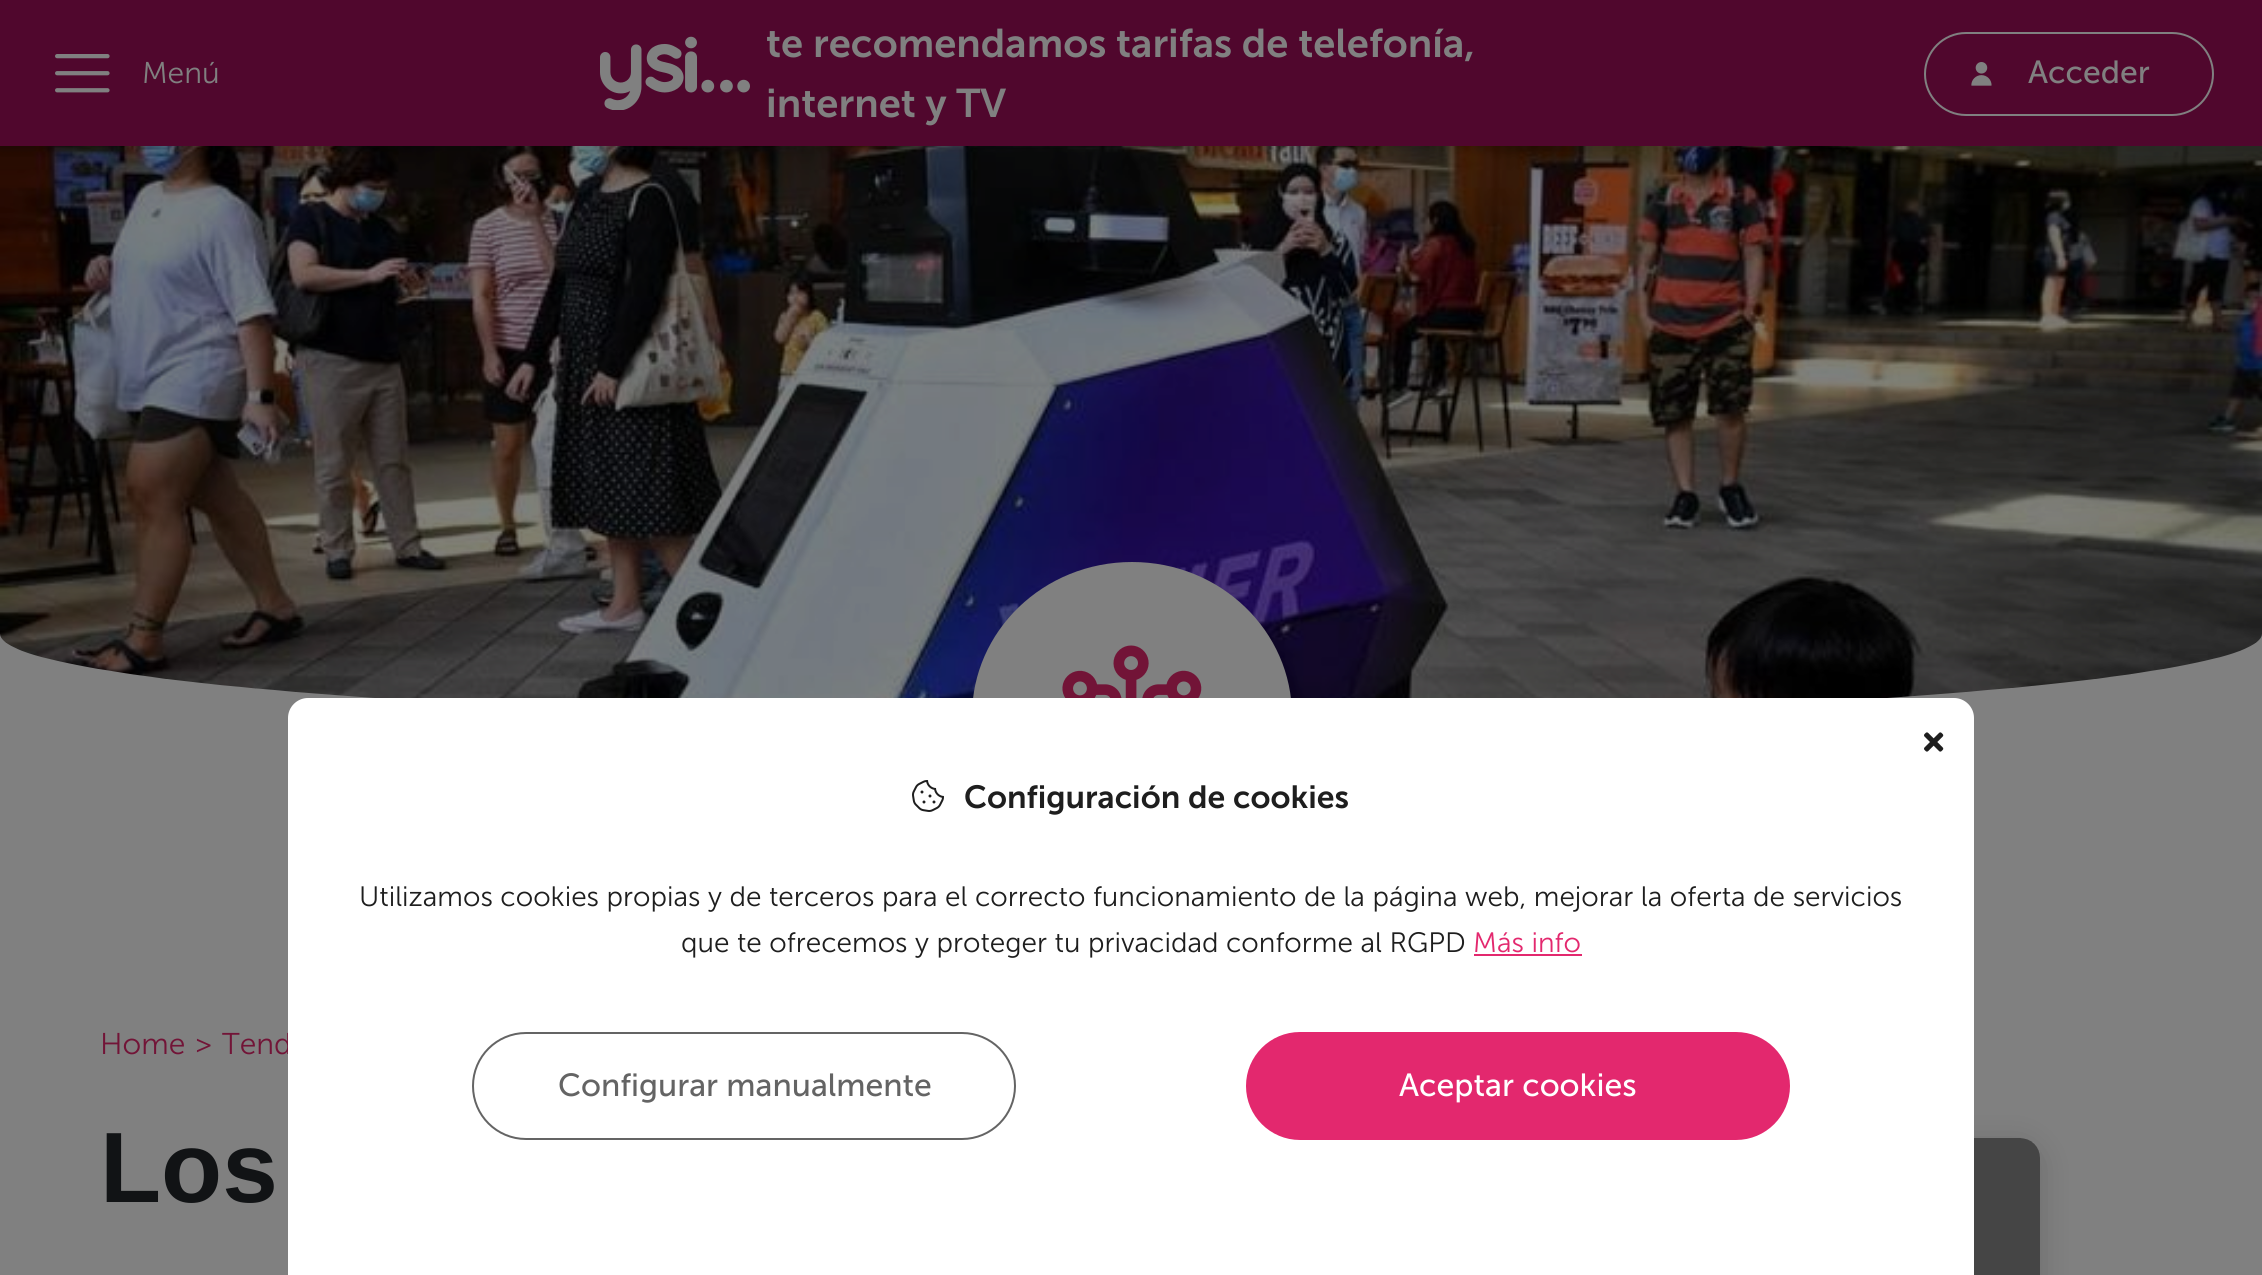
import math
import cairocffi as cairo

surface = cairo.ImageSurface(cairo.FORMAT_RGB24, 2262, 1275)
ctx = cairo.Context(surface)
options = cairo.FontOptions()
options.set_hint_metrics(cairo.HINT_METRICS_OFF)
options.set_hint_style(cairo.HINT_STYLE_NONE)
ctx.set_font_options(options)
ctx.set_miter_limit(4)


def rgb(r, g, b):
    ctx.set_source_rgb(r / 255, g / 255, b / 255)


def face(family, size, italic, bold):
    ctx.select_font_face(family, cairo.FONT_SLANT_ITALIC if italic else cairo.FONT_SLANT_NORMAL, cairo.FONT_WEIGHT_BOLD if bold else cairo.FONT_WEIGHT_NORMAL)
    ctx.set_font_size(size)


def label(x, y, s):
    ctx.move_to(x, y)
    ctx.show_text(s)


def rect(x, y, w, h):
    ctx.rectangle(x, y, w, h)
    ctx.fill()


def rrect(x, y, w, h, r):
    ctx.new_sub_path()
    for i, (u, v) in enumerate([(x + w - r, y + h - r), (x + r, y + h - r), (x + r, y + r), (x + w - r, y + r)]):
        ctx.arc(u, v, r, i * math.pi / 2, (i + 1) * math.pi / 2)
    ctx.close_path()


def soft_shadow(x, y, w, h, r, blur, alpha):
    ctx.push_group_with_content(cairo.CONTENT_ALPHA)
    ctx.set_operator(cairo.OPERATOR_SOURCE)
    for i in range(15, -16, -2):
        e = blur * i / 6
        if min(w, h) + 2 * e > 0:
            ctx.set_source_rgba(0, 0, 0, alpha * math.erfc((i - 1) / 8.5) / 2)
            rrect(x - e, y - e, w + 2 * e, h + 2 * e, max(0, min(r + e + blur * .6, min(w, h) / 2 + e)))
            ctx.fill()
    ctx.mask(ctx.pop_group())


def image(path, x, y, w, h):
    ctx.save()
    ctx.set_source_surface(cairo.ImageSurface.create_from_png(path), x, y)
    ctx.rectangle(x, y, w, h)
    ctx.fill()
    ctx.restore()


rgb(128, 128, 128)
ctx.paint()
image('image3.png', 0, 146, 2262, 552)
rgb(0, 0, 0)
soft_shadow(0, 4, 2262, 146, 0, 8, 0.09)
rgb(80, 7, 45)
rect(0, 0, 2262, 146)
image('image0.png', 55, 54, 55, 39)
face('Museo Sans Light', 30, 0, 0)
rgb(128, 128, 128)
label(142, 83, 'Menú')
image('image1.png', 600, 36, 150, 74)
face('Museo Sans SemiBold', 40, 0, 0)
label(766, 57, 'te recomendamos tarifas de telefonía,')
label(766, 117, 'internet y TV')
rrect(1925, 33, 288, 82, 41)
ctx.stroke()
image('image2.png', 1971, 62, 21, 24)
face('Museo Sans', 32, 0, 0)
label(2028, 83, 'Acceder')
ctx.new_path()
ctx.move_to(1132, 562)
ctx.curve_to(1220.5, 562, 1292, 631, 1292, 716)
ctx.curve_to(1292, 801, 1220.5, 870, 1132, 870)
ctx.curve_to(1043.5, 870, 972, 801, 972, 716)
ctx.curve_to(972, 631, 1043.5, 562, 1132, 562)
ctx.close_path()
ctx.fill()
image('image4.png', 1062, 645, 140, 53)
face('Museo Sans Light', 30, 0, 0)
rgb(114, 20, 55)
label(100, 1054, 'Home')
label(195, 1054, '>')
label(222, 1054, 'Tend')
face('Liberation Sans', 100, 0, 1)
rgb(17, 19, 21)
label(100, 1202, 'Los')
rgb(0, 0, 0)
soft_shadow(1460, 1144, 580, 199, 20, 16, 0.16)
rgb(128, 128, 128)
rrect(1460, 1138, 580, 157, 20)
ctx.fill()
image('image5.png', 1974, 1138, 66, 137)
rgb(255, 255, 255)
ctx.new_path()
ctx.move_to(308, 698)
ctx.line_to(1954, 698)
ctx.curve_to(1965, 698, 1974, 707, 1974, 718)
ctx.line_to(1974, 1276)
ctx.line_to(288, 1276)
ctx.line_to(288, 718)
ctx.curve_to(288, 707, 297, 698, 308, 698)
ctx.close_path()
ctx.fill()
image('image6.png', 1924, 732, 20, 20)
image('image7.png', 912, 780, 32, 32)
face('Museo Sans SemiBold', 32, 0, 0)
rgb(30, 30, 30)
label(964, 808, 'Configuración de cookies')
face('Museo Sans Light', 28, 0, 0)
label(359, 906, 'Utilizamos cookies propias y de terceros para el correcto funcionamiento de la página web, mejorar la oferta de servicios')
label(681, 952, 'que te ofrecemos y proteger tu privacidad conforme al RGPD')
rgb(227, 40, 110)
label(1473, 952, 'Más info')
rect(1474, 954, 108, 2)
rrect(473, 1033, 542, 106, 53)
rgb(100, 100, 100)
ctx.stroke()
face('Museo Sans', 32, 0, 0)
label(558, 1096, 'Configurar manualmente')
rgb(227, 40, 110)
rrect(1247, 1033, 542, 106, 53)
ctx.fill_preserve()
ctx.stroke()
rgb(255, 255, 255)
label(1399, 1096, 'Aceptar cookies')
surface.write_to_png('render.png')
